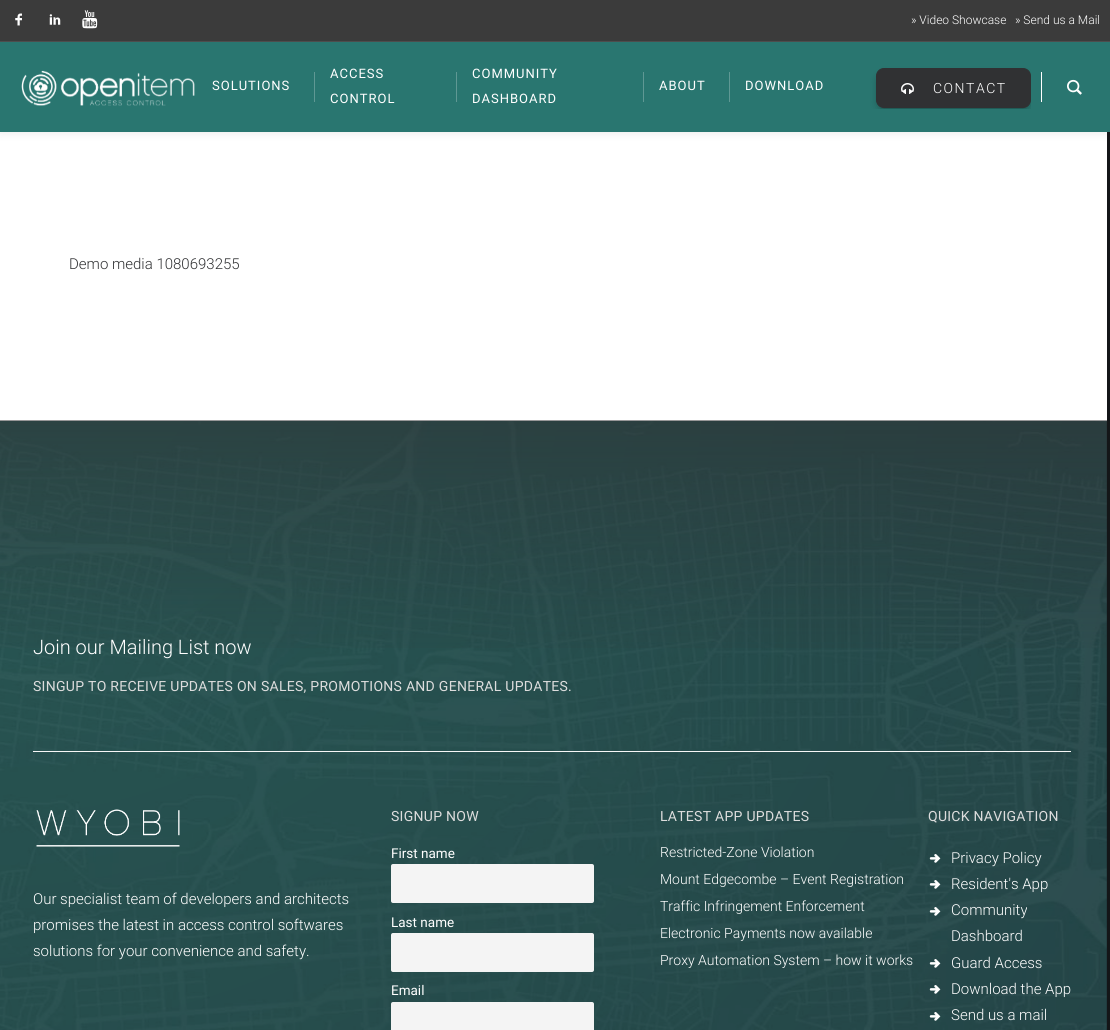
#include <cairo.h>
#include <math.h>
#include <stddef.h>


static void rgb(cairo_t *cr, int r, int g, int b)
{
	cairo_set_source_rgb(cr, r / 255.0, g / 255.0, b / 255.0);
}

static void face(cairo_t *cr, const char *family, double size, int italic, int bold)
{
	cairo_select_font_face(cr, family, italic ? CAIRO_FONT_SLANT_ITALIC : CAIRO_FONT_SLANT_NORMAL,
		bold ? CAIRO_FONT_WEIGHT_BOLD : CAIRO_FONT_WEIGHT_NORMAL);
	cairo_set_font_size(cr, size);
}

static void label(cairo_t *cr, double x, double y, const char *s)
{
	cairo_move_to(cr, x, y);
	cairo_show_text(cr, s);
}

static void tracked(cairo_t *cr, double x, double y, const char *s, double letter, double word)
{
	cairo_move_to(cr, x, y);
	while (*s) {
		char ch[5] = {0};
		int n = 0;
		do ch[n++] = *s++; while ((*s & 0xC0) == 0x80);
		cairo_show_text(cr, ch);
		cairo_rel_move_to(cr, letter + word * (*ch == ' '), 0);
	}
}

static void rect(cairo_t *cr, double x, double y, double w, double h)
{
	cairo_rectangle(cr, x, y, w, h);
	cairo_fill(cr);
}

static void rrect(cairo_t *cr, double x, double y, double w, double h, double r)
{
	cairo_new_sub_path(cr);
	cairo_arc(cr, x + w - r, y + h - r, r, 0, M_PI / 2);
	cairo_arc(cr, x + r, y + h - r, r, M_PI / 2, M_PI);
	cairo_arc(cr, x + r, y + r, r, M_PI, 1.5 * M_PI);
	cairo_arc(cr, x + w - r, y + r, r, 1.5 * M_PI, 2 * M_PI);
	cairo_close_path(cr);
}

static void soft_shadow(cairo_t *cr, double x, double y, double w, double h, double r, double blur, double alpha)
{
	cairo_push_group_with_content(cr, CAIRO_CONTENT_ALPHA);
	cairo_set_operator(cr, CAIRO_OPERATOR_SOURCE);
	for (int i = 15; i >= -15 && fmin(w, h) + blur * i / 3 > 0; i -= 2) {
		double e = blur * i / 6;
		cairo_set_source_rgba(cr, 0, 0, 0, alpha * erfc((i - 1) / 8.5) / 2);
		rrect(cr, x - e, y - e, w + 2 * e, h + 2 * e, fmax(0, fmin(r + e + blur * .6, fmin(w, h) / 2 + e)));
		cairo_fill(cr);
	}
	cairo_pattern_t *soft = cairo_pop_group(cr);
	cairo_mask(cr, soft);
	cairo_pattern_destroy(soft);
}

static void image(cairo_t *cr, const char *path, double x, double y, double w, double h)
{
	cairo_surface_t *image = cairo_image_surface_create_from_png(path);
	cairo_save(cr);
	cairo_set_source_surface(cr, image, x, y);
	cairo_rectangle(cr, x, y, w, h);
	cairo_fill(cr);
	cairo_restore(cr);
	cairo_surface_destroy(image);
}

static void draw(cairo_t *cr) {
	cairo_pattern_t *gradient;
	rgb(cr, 20, 22, 24);
	cairo_paint(cr);
	rgb(cr, 255, 255, 255);
	rect(cr, 0, 132, 1107, 289);
	rgb(cr, 0, 0, 0);
	soft_shadow(cr, 0, 42, 1110, 90, 0, 5, 0.1);
	rgb(cr, 77, 77, 77);
	rect(cr, 0, 41, 1110, 1);
	rgb(cr, 59, 59, 59);
	rect(cr, 0, 0, 1110, 41);
	image(cr, "image0.png", 15, 13, 7, 13);
	image(cr, "image1.png", 49, 14, 12, 11);
	image(cr, "image2.png", 82, 10, 16, 19);
	face(cr, "Roboto Light", 12, 0, 0);
	rgb(cr, 255, 255, 255);
	label(cr, 911, 24, "» Video Showcase");
	label(cr, 1015, 24, "» Send us a Mail");
	rgb(cr, 41, 118, 112);
	rect(cr, 0, 42, 1110, 90);
	image(cr, "image3.png", 21, 70, 174, 36);
	face(cr, "Roboto", 13, 0, 0);
	rgb(cr, 255, 255, 255);
	tracked(cr, 212, 90, "SOLUTIONS", 1, 0);
	rgb(cr, 95, 152, 148);
	rect(cr, 314, 72, 1, 30);
	rgb(cr, 255, 255, 255);
	tracked(cr, 330, 78, "ACCESS", 1, 0);
	tracked(cr, 330, 103, "CONTROL", 1, 0);
	rgb(cr, 95, 152, 148);
	rect(cr, 456, 72, 1, 30);
	rgb(cr, 255, 255, 255);
	tracked(cr, 472, 78, "COMMUNITY", 1, 0);
	tracked(cr, 472, 103, "DASHBOARD", 1, 0);
	rgb(cr, 95, 152, 148);
	rect(cr, 643, 72, 1, 30);
	rgb(cr, 255, 255, 255);
	tracked(cr, 659, 90, "ABOUT", 1, 0);
	rgb(cr, 95, 152, 148);
	rect(cr, 729, 72, 1, 30);
	rgb(cr, 255, 255, 255);
	tracked(cr, 745, 90, "DOWNLOAD", 1, 0);
	rect(cr, 1041, 72, 1, 30);
	cairo_save(cr);
	cairo_rectangle(cr, 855, 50, 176, 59);
	cairo_clip(cr);
	rgb(cr, 0, 0, 0);
	soft_shadow(cr, 881, 77, 145, 30, 3, 5, 0.6);
	cairo_restore(cr);
	rgb(cr, 48, 49, 51);
	rrect(cr, 876.5, 68.5, 154, 39, 7.5);
	cairo_fill_preserve(cr);
	cairo_set_line_width(cr, 1);
	cairo_stroke(cr);
	image(cr, "image4.png", 901, 83, 13, 11);
	face(cr, "Roboto Light", 14, 0, 0);
	rgb(cr, 255, 255, 255);
	tracked(cr, 933, 93, "CONTACT", 1.5, 0);
	image(cr, "image5.png", 1067, 79, 15, 16);
	face(cr, "Roboto Light", 15, 0, 0);
	rgb(cr, 48, 49, 51);
	label(cr, 69, 269, "Demo media 1080693255");
	image(cr, "image6.png", 0, 421, 1107, 609);
	gradient = cairo_pattern_create_radial(-3, 315, 0, -3, 315, 1661);
	cairo_pattern_add_color_stop_rgba(gradient, 0.09, 0.161, 0.463, 0.439, 0.3);
	cairo_pattern_add_color_stop_rgba(gradient, 0.94, 0.11, 0.204, 0.251, 0.3);
	cairo_set_source(cr, gradient);
	cairo_pattern_destroy(gradient);
	rect(cr, 0, 421, 1107, 609);
	gradient = cairo_pattern_create_linear(552, 680, 552, 420);
	cairo_pattern_add_color_stop_rgba(gradient, 0, 0.188, 0.192, 0.2, 0);
	cairo_pattern_add_color_stop_rgba(gradient, 1, 0.188, 0.192, 0.2, 0.5);
	cairo_set_source(cr, gradient);
	cairo_pattern_destroy(gradient);
	rect(cr, 0, 420, 1107, 228);
	face(cr, "Roboto Light", 20, 0, 0);
	rgb(cr, 255, 255, 255);
	label(cr, 33, 654, "Join our Mailing List now");
	face(cr, "Roboto", 14, 0, 0);
	rgb(cr, 221, 221, 221);
	tracked(cr, 33, 691, "SINGUP TO RECEIVE UPDATES ON SALES, PROMOTIONS AND GENERAL UPDATES.", 0.28, 0);
	rgb(cr, 247, 247, 247);
	rect(cr, 33, 751, 1038, 1);
	image(cr, "image7.png", 36, 809, 144, 38);
	face(cr, "Roboto Light", 15, 0, 0);
	rgb(cr, 255, 255, 255);
	label(cr, 33, 904, "Our specialist team of developers and architects");
	label(cr, 33, 930, "promises the latest in access control softwares");
	label(cr, 33, 956, "solutions for your convenience and safety.");
	face(cr, "Roboto", 14, 0, 0);
	rgb(cr, 221, 221, 221);
	tracked(cr, 391, 821, "SIGNUP NOW", 0.28, 0);
	face(cr, "Roboto", 13.5, 0, 0);
	rgb(cr, 255, 255, 255);
	label(cr, 391, 858, "First name");
	rgb(cr, 244, 244, 244);
	rrect(cr, 391, 864, 203, 39, 2);
	cairo_fill(cr);
	rgb(cr, 255, 255, 255);
	label(cr, 391, 927, "Last name");
	rgb(cr, 244, 244, 244);
	rrect(cr, 391, 933, 203, 39, 2);
	cairo_fill(cr);
	rgb(cr, 255, 255, 255);
	label(cr, 391, 995, "Email");
	rgb(cr, 244, 244, 244);
	rrect(cr, 391, 1002, 203, 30, 2);
	cairo_fill(cr);
	face(cr, "Roboto", 14, 0, 0);
	rgb(cr, 221, 221, 221);
	tracked(cr, 660, 821, "LATEST APP UPDATES", 0.28, 0);
	face(cr, "Roboto Light", 14, 0, 0);
	rgb(cr, 255, 255, 255);
	label(cr, 660, 857, "Restricted-Zone Violation");
	label(cr, 660, 884, "Mount Edgecombe – Event Registration");
	label(cr, 660, 911, "Traffic Infringement Enforcement");
	label(cr, 660, 938, "Electronic Payments now available");
	label(cr, 660, 965, "Proxy Automation System – how it works");
	face(cr, "Roboto", 14, 0, 0);
	rgb(cr, 221, 221, 221);
	tracked(cr, 928, 821, "QUICK NAVIGATION", 0.28, 0);
	image(cr, "image8.png", 929, 854, 12, 9);
	face(cr, "Roboto Light", 15, 0, 0);
	rgb(cr, 255, 255, 255);
	label(cr, 951, 863, "Privacy Policy");
	image(cr, "image9.png", 929, 880, 12, 9);
	label(cr, 951, 889, "Resident's App");
	image(cr, "image10.png", 929, 907, 12, 9);
	label(cr, 951, 915, "Community");
	label(cr, 951, 941, "Dashboard");
	image(cr, "image11.png", 929, 959, 12, 9);
	label(cr, 951, 968, "Guard Access");
	image(cr, "image12.png", 929, 985, 12, 9);
	label(cr, 951, 994, "Download the App");
	image(cr, "image13.png", 929, 1012, 12, 9);
	label(cr, 951, 1020, "Send us a mail");
}

int main(void) {
	cairo_surface_t *surface = cairo_image_surface_create(CAIRO_FORMAT_RGB24, 1110, 1030);
	cairo_t *cr = cairo_create(surface);
	cairo_font_options_t *options = cairo_font_options_create();
	cairo_font_options_set_hint_metrics(options, CAIRO_HINT_METRICS_OFF);
	cairo_font_options_set_hint_style(options, CAIRO_HINT_STYLE_NONE);
	cairo_set_font_options(cr, options);
	cairo_set_miter_limit(cr, 4);
	draw(cr);
	cairo_surface_write_to_png(surface, "render.png");
	cairo_font_options_destroy(options);
	cairo_destroy(cr);
	cairo_surface_destroy(surface);
	return 0;
}
